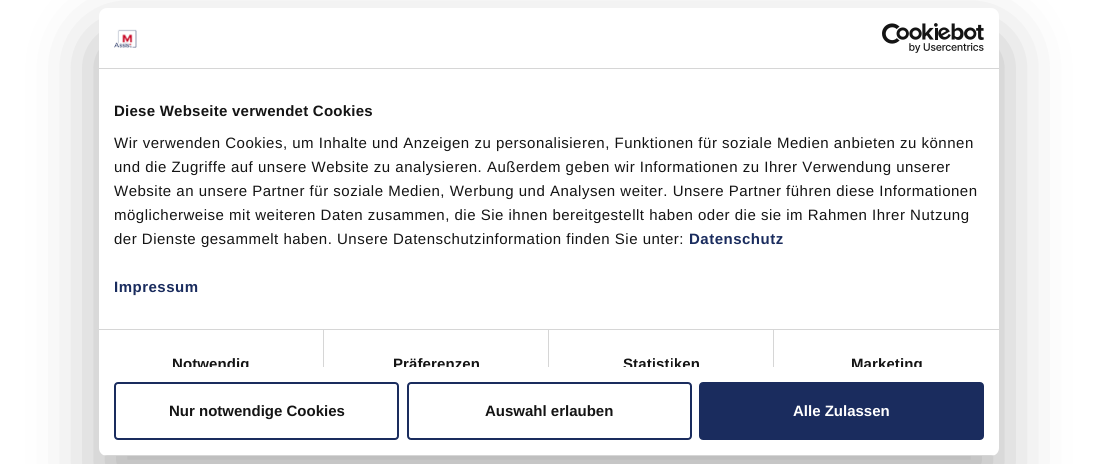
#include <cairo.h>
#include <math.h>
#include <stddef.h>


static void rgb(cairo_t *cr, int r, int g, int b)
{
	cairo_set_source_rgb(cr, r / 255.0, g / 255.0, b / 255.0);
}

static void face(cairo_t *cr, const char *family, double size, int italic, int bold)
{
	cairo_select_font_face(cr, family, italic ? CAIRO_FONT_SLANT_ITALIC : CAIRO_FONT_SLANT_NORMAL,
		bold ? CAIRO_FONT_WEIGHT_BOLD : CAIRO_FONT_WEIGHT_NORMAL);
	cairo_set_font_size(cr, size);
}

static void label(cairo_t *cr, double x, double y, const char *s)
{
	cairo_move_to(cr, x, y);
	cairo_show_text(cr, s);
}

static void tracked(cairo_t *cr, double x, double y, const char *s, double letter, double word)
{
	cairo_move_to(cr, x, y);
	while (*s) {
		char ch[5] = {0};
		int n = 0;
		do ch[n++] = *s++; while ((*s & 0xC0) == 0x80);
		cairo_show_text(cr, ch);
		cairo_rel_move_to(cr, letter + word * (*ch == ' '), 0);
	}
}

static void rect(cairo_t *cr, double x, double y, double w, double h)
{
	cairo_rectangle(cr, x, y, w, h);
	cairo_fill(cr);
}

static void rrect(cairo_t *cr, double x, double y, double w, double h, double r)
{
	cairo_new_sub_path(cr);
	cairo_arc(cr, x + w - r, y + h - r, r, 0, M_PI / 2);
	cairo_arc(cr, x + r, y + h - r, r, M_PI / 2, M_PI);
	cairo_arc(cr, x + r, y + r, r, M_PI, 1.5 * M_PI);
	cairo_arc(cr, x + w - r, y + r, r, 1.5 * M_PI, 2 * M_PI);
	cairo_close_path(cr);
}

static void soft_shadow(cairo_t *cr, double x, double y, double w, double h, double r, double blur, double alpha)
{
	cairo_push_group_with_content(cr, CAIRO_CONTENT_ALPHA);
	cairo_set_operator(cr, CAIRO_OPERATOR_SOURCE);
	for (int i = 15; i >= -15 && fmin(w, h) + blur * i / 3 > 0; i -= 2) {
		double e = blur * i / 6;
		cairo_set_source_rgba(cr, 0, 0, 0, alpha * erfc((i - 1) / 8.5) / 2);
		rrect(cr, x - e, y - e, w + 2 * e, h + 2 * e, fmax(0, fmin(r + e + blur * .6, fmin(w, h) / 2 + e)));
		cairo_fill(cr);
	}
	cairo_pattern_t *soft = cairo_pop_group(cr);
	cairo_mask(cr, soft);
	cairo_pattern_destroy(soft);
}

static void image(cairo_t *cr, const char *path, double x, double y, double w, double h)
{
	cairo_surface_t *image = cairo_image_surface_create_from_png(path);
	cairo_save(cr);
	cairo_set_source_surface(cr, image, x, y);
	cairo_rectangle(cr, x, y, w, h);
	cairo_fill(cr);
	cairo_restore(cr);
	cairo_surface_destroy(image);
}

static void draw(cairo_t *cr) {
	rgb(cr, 255, 255, 255);
	cairo_paint(cr);
	rgb(cr, 0, 0, 0);
	soft_shadow(cr, 99, 40, 900, 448, 8, 34, 0.3);
	rgb(cr, 255, 255, 255);
	rrect(cr, 99, 8, 900, 448, 8);
	cairo_fill(cr);
	rgb(cr, 214, 214, 214);
	rect(cr, 99, 68, 900, 1);
	image(cr, "image0.png", 114, 29, 23, 19);
	image(cr, "image1.png", 882, 23, 102, 30);
	rect(cr, 99, 329, 900, 1);
	face(cr, "Liberation Sans", 15, 0, 1);
	rgb(cr, 20, 20, 20);
	tracked(cr, 114, 116, "Diese Webseite verwendet Cookies", 0.25, 0);
	face(cr, "Liberation Sans", 15, 0, 0);
	tracked(cr, 114, 148, "Wir verwenden Cookies, um Inhalte und Anzeigen zu personalisieren, Funktionen für soziale Medien anbieten zu können", 0.5, 0);
	tracked(cr, 114, 172, "und die Zugriffe auf unsere Website zu analysieren. Außerdem geben wir Informationen zu Ihrer Verwendung unserer", 0.5, 0);
	tracked(cr, 114, 196, "Website an unsere Partner für soziale Medien, Werbung und Analysen weiter. Unsere Partner führen diese Informationen", 0.5, 0);
	tracked(cr, 114, 220, "möglicherweise mit weiteren Daten zusammen, die Sie ihnen bereitgestellt haben oder die sie im Rahmen Ihrer Nutzung", 0.5, 0);
	tracked(cr, 114, 244, "der Dienste gesammelt haben. Unsere Datenschutzinformation finden Sie unter:", 0.5, 0);
	face(cr, "Liberation Sans", 15, 0, 1);
	rgb(cr, 26, 44, 94);
	tracked(cr, 689, 244, "Datenschutz", 0.5, 0);
	tracked(cr, 114, 292, "Impressum", 0.5, 0);
	rgb(cr, 214, 214, 214);
	rect(cr, 323, 330, 1, 37);
	cairo_save(cr);
	cairo_rectangle(cr, 99, 69, 900, 298);
	cairo_clip(cr);
	rgb(cr, 20, 20, 20);
	tracked(cr, 172, 369, "Notwendig", 0.1, 0);
	cairo_restore(cr);
	rect(cr, 548, 330, 1, 37);
	cairo_save(cr);
	cairo_rectangle(cr, 99, 69, 900, 298);
	cairo_clip(cr);
	rgb(cr, 20, 20, 20);
	tracked(cr, 393, 369, "Präferenzen", 0.1, 0);
	cairo_restore(cr);
	rect(cr, 773, 330, 1, 37);
	cairo_save(cr);
	cairo_rectangle(cr, 99, 69, 900, 298);
	cairo_clip(cr);
	rgb(cr, 20, 20, 20);
	tracked(cr, 623, 369, "Statistiken", 0.1, 0);
	tracked(cr, 851, 369, "Marketing", 0.1, 0);
	cairo_restore(cr);
	cairo_save(cr);
	rrect(cr, 99, 8, 900, 448, 8);
	cairo_clip(cr);
	rect(cr, 99, 455, 900, 1);
	cairo_restore(cr);
	rrect(cr, 115, 383, 283, 56, 3);
	rgb(cr, 26, 44, 94);
	cairo_stroke(cr);
	rgb(cr, 20, 20, 20);
	label(cr, 169, 416, "Nur notwendige Cookies");
	rrect(cr, 408, 383, 283, 56, 3);
	rgb(cr, 26, 44, 94);
	cairo_stroke(cr);
	rgb(cr, 20, 20, 20);
	label(cr, 485, 416, "Auswahl erlauben");
	rgb(cr, 26, 44, 94);
	rrect(cr, 700, 383, 283, 56, 3);
	cairo_fill_preserve(cr);
	cairo_stroke(cr);
	rgb(cr, 255, 255, 255);
	label(cr, 793, 416, "Alle Zulassen");
}

int main(void) {
	cairo_surface_t *surface = cairo_image_surface_create(CAIRO_FORMAT_RGB24, 1098, 464);
	cairo_t *cr = cairo_create(surface);
	cairo_font_options_t *options = cairo_font_options_create();
	cairo_font_options_set_hint_metrics(options, CAIRO_HINT_METRICS_OFF);
	cairo_font_options_set_hint_style(options, CAIRO_HINT_STYLE_NONE);
	cairo_set_font_options(cr, options);
	cairo_set_miter_limit(cr, 4);
	draw(cr);
	cairo_surface_write_to_png(surface, "render.png");
	cairo_font_options_destroy(options);
	cairo_destroy(cr);
	cairo_surface_destroy(surface);
	return 0;
}
